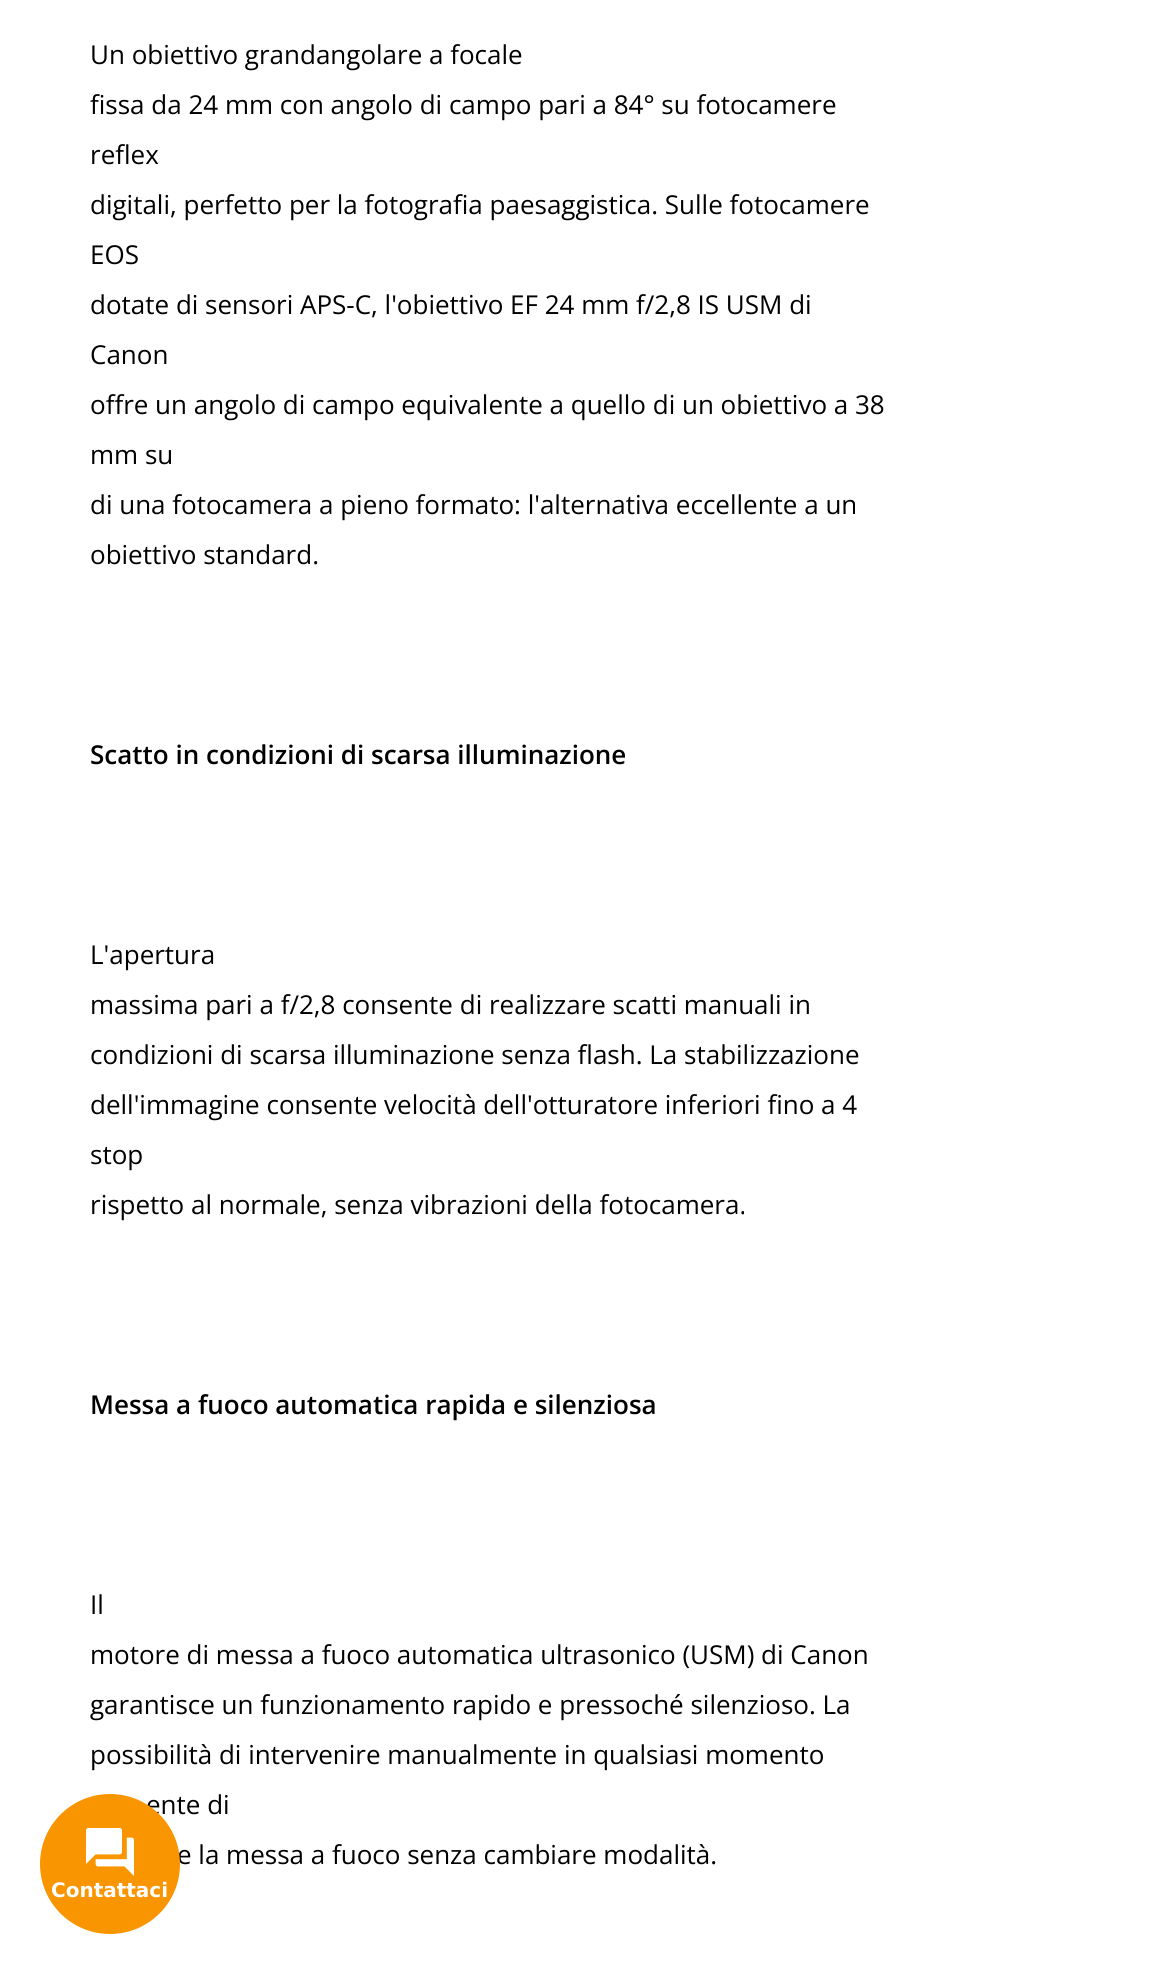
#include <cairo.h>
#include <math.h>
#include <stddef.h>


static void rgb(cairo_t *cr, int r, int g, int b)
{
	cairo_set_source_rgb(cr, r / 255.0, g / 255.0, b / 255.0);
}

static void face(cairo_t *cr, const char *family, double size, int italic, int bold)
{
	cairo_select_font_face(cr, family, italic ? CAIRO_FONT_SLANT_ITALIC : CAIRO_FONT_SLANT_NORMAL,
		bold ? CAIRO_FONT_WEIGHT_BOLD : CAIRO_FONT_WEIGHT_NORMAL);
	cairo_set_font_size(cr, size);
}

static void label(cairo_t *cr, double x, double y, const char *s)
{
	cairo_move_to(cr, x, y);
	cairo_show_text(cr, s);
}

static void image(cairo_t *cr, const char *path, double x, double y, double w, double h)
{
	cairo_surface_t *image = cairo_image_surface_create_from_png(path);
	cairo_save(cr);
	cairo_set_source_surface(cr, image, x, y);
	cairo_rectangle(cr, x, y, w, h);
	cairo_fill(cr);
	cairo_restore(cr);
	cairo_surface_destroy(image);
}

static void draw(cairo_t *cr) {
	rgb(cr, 255, 255, 255);
	cairo_paint(cr);
	face(cr, "Open Sans", 26, 0, 0);
	rgb(cr, 0, 0, 0);
	label(cr, 90, 64, "Un obiettivo grandangolare a focale");
	label(cr, 90, 114, "fissa da 24 mm con angolo di campo pari a 84° su fotocamere");
	label(cr, 90, 164, "reflex");
	label(cr, 90, 214, "digitali, perfetto per la fotografia paesaggistica. Sulle fotocamere");
	label(cr, 90, 264, "EOS");
	label(cr, 90, 314, "dotate di sensori APS-C, l'obiettivo EF 24 mm f/2,8 IS USM di");
	label(cr, 90, 364, "Canon");
	label(cr, 90, 414, "offre un angolo di campo equivalente a quello di un obiettivo a 38");
	label(cr, 90, 464, "mm su");
	label(cr, 90, 514, "di una fotocamera a pieno formato: l'alternativa eccellente a un");
	label(cr, 90, 564, "obiettivo standard.");
	face(cr, "Open Sans SemiBold", 26, 0, 0);
	label(cr, 90, 764, "Scatto in condizioni di scarsa illuminazione");
	face(cr, "Open Sans", 26, 0, 0);
	label(cr, 90, 964, "L'apertura");
	label(cr, 90, 1014, "massima pari a f/2,8 consente di realizzare scatti manuali in");
	label(cr, 90, 1064, "condizioni di scarsa illuminazione senza flash. La stabilizzazione");
	label(cr, 90, 1114, "dell'immagine consente velocità dell'otturatore inferiori fino a 4");
	label(cr, 90, 1164, "stop");
	label(cr, 90, 1214, "rispetto al normale, senza vibrazioni della fotocamera.");
	face(cr, "Open Sans SemiBold", 26, 0, 0);
	label(cr, 90, 1414, "Messa a fuoco automatica rapida e silenziosa");
	face(cr, "Open Sans", 26, 0, 0);
	label(cr, 90, 1614, "Il");
	label(cr, 90, 1664, "motore di messa a fuoco automatica ultrasonico (USM) di Canon");
	label(cr, 90, 1714, "garantisce un funzionamento rapido e pressoché silenzioso. La");
	label(cr, 90, 1764, "possibilità di intervenire manualmente in qualsiasi momento");
	label(cr, 146, 1814, "ente di");
	label(cr, 177, 1864, "e la messa a fuoco senza cambiare modalità.");
	rgb(cr, 249, 149, 0);
	cairo_new_path(cr);
	cairo_arc(cr, 110, 1864, 70, 0, 2 * M_PI);
	cairo_fill(cr);
	image(cr, "image0.png", 86, 1828, 48, 48);
	face(cr, "DejaVu Sans", 20, 0, 1);
	rgb(cr, 255, 255, 255);
	label(cr, 51, 1897, "Contattaci");
}

int main(void) {
	cairo_surface_t *surface = cairo_image_surface_create(CAIRO_FORMAT_RGB24, 1168, 1974);
	cairo_t *cr = cairo_create(surface);
	cairo_font_options_t *options = cairo_font_options_create();
	cairo_font_options_set_hint_metrics(options, CAIRO_HINT_METRICS_OFF);
	cairo_font_options_set_hint_style(options, CAIRO_HINT_STYLE_NONE);
	cairo_set_font_options(cr, options);
	cairo_set_miter_limit(cr, 4);
	draw(cr);
	cairo_surface_write_to_png(surface, "render.png");
	cairo_font_options_destroy(options);
	cairo_destroy(cr);
	cairo_surface_destroy(surface);
	return 0;
}
